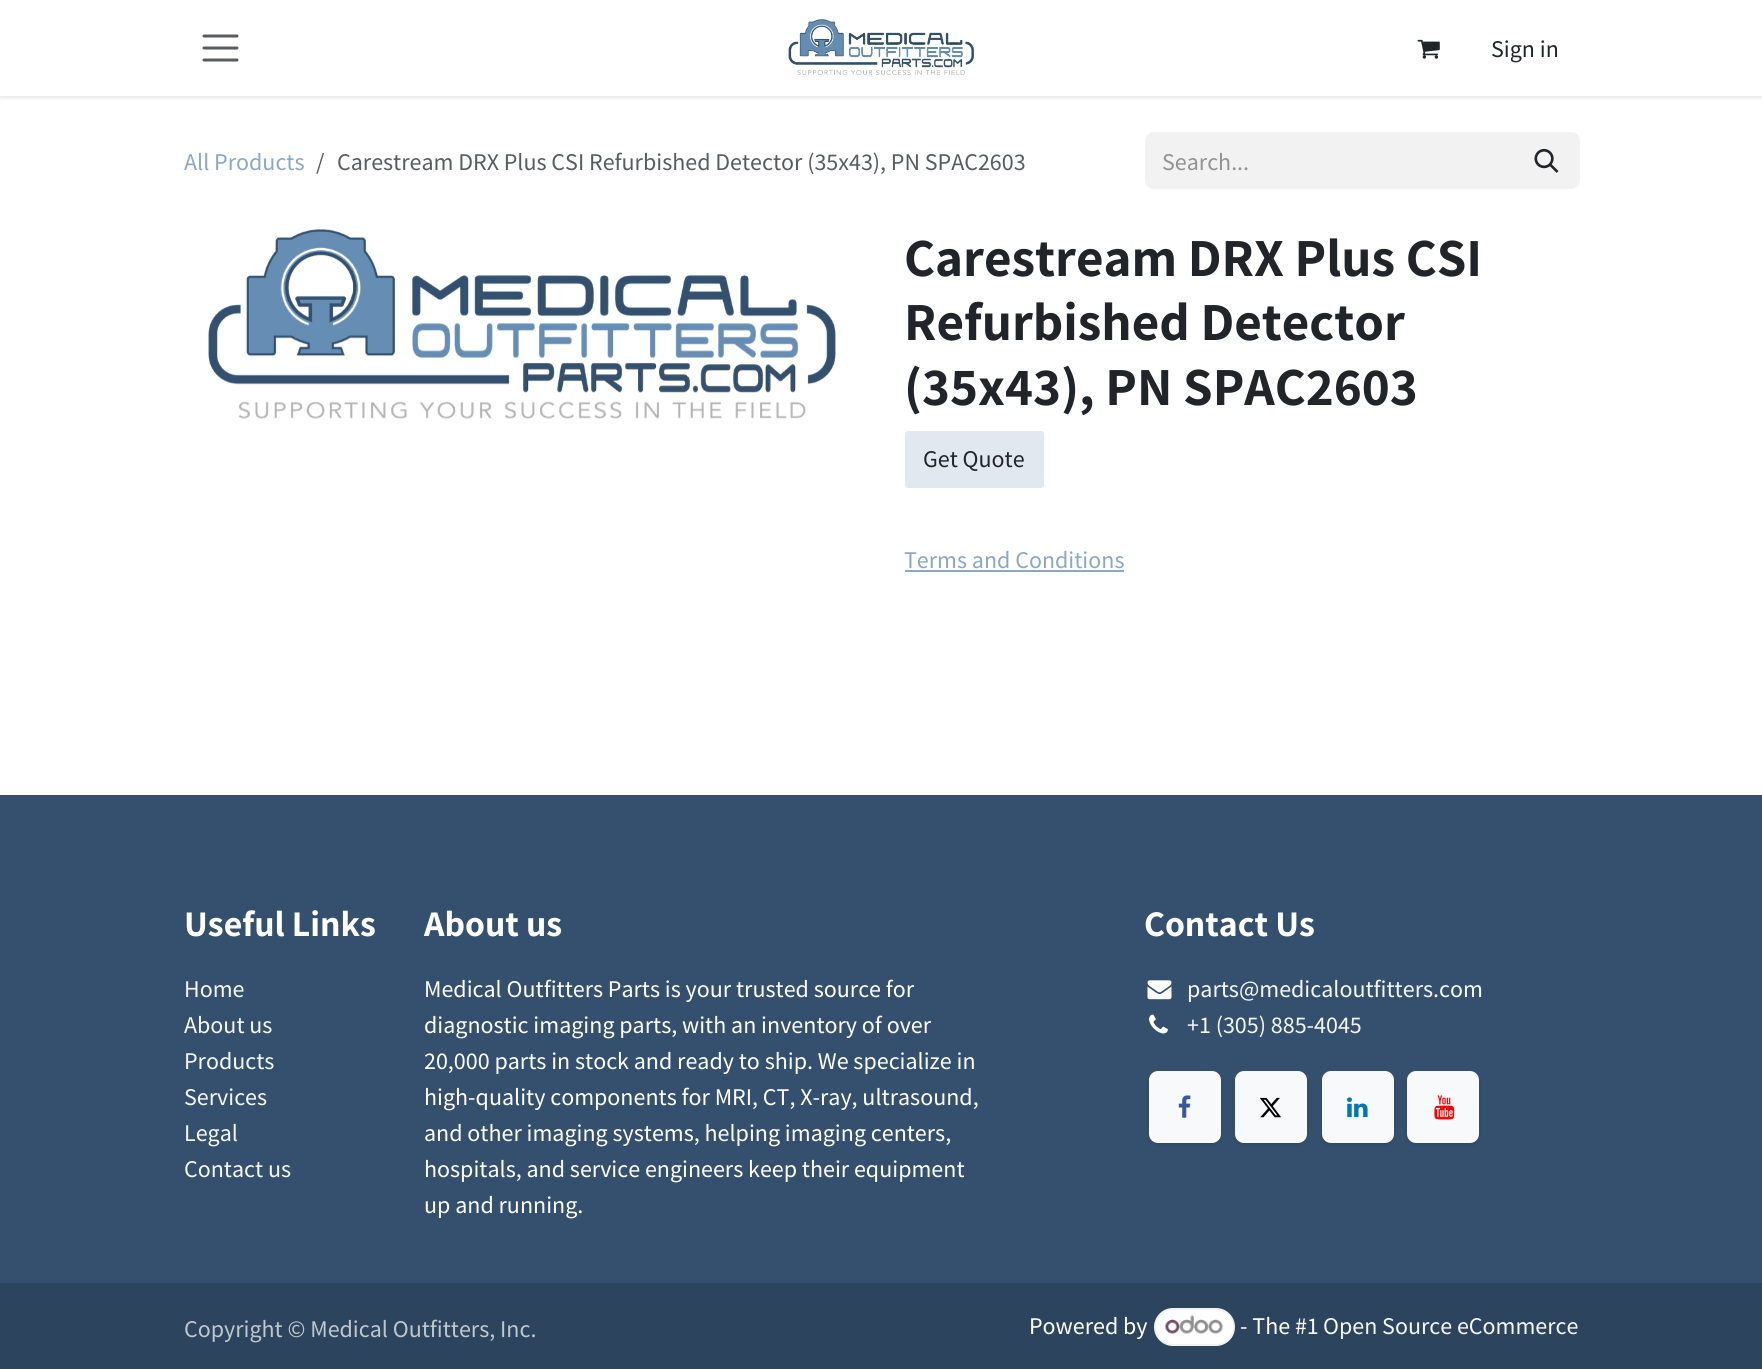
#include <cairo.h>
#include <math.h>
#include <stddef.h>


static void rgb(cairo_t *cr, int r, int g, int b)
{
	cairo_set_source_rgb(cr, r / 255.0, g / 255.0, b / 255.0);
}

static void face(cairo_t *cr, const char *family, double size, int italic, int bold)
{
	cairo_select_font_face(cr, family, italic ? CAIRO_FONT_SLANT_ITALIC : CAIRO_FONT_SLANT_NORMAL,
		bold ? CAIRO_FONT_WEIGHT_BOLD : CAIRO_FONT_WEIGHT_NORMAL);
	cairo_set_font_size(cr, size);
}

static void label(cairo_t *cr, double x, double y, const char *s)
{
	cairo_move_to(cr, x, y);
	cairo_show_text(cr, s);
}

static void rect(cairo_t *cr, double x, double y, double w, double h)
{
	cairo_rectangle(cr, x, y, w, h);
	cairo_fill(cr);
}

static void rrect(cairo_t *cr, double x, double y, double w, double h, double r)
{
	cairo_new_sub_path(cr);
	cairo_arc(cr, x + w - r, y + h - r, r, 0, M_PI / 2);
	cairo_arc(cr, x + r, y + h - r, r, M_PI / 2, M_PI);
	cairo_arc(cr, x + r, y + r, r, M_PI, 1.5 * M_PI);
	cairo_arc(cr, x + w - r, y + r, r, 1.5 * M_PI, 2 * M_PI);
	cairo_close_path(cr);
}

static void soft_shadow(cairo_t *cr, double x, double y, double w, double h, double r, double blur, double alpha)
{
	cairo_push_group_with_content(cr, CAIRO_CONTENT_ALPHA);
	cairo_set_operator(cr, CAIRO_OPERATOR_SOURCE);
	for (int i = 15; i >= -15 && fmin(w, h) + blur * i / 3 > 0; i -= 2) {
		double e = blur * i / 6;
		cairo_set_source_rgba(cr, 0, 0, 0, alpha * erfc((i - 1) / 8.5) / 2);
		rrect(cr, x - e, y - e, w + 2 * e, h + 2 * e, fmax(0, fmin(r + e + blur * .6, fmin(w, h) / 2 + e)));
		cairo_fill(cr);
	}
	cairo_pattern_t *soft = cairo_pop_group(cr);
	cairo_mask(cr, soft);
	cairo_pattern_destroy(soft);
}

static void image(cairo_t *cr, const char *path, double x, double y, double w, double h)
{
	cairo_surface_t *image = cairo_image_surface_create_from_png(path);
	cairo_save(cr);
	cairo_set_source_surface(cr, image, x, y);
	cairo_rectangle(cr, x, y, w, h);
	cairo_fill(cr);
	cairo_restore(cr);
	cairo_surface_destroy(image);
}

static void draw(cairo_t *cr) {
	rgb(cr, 255, 255, 255);
	cairo_paint(cr);
	cairo_save(cr);
	cairo_rectangle(cr, 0, 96, 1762, 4);
	cairo_clip(cr);
	rgb(cr, 0, 0, 0);
	soft_shadow(cr, 0, 2, 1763, 96, 0, 2, 0.1);
	cairo_restore(cr);
	cairo_new_path(cr);
	cairo_move_to(cr, 204, 36);
	cairo_line_to(cr, 237, 36);
	cairo_move_to(cr, 204, 48);
	cairo_line_to(cr, 237, 48);
	cairo_move_to(cr, 204, 60);
	cairo_line_to(cr, 237, 60);
	rgb(cr, 89, 92, 95);
	cairo_set_line_width(cr, 3);
	cairo_set_line_cap(cr, CAIRO_LINE_CAP_ROUND);
	cairo_stroke(cr);
	image(cr, "image0.png", 788, 19, 187, 56);
	image(cr, "image1.png", 1417, 39, 23, 20);
	face(cr, "Source Sans Pro", 24, 0, 0);
	rgb(cr, 33, 37, 41);
	label(cr, 1491, 57, "Sign in");
	rgb(cr, 140, 167, 198);
	label(cr, 184, 170, "All Products");
	rgb(cr, 89, 92, 95);
	label(cr, 316, 170, "/");
	label(cr, 337, 170, "Carestream DRX Plus CSI Refurbished Detector (35x43), PN SPAC2603");
	rgb(cr, 243, 242, 242);
	cairo_new_path(cr);
	cairo_move_to(cr, 1154, 132);
	cairo_line_to(cr, 1517, 132);
	cairo_line_to(cr, 1517, 189);
	cairo_line_to(cr, 1154, 189);
	cairo_curve_to(cr, 1149, 189, 1145, 185, 1145, 180);
	cairo_line_to(cr, 1145, 141);
	cairo_curve_to(cr, 1145, 136, 1149, 132, 1154, 132);
	cairo_close_path(cr);
	cairo_fill(cr);
	rgb(cr, 144, 146, 148);
	label(cr, 1162, 170, "Search...");
	rgb(cr, 243, 242, 242);
	cairo_new_path(cr);
	cairo_move_to(cr, 1516, 133);
	cairo_line_to(cr, 1571, 133);
	cairo_curve_to(cr, 1575.5, 133, 1579, 136.5, 1579, 141);
	cairo_line_to(cr, 1579, 180);
	cairo_curve_to(cr, 1579, 184.5, 1575.5, 188, 1571, 188);
	cairo_line_to(cr, 1516, 188);
	cairo_close_path(cr);
	cairo_fill_preserve(cr);
	cairo_set_line_width(cr, 2);
	cairo_set_line_cap(cr, CAIRO_LINE_CAP_BUTT);
	cairo_stroke(cr);
	image(cr, "image2.png", 1534, 148, 25, 25);
	image(cr, "image3.png", 208, 229, 628, 190);
	face(cr, "Assistant", 53.5, 0, 1);
	rgb(cr, 33, 37, 41);
	label(cr, 904, 276, "Carestream DRX Plus CSI");
	label(cr, 904, 340, "Refurbished Detector");
	label(cr, 904, 405, "(35x43), PN SPAC2603");
	rgb(cr, 225, 232, 240);
	rrect(cr, 906, 432, 137, 55, 2);
	cairo_fill_preserve(cr);
	cairo_stroke(cr);
	face(cr, "Source Sans Pro", 24, 0, 0);
	rgb(cr, 33, 37, 41);
	label(cr, 923, 467, "Get Quote");
	rgb(cr, 140, 167, 198);
	label(cr, 904, 568, "Terms and Conditions");
	rect(cr, 905, 570, 219, 2);
	rgb(cr, 52, 80, 110);
	rect(cr, 0, 795, 1762, 488);
	face(cr, "Assistant", 36, 0, 1);
	rgb(cr, 255, 255, 255);
	label(cr, 184, 936, "Useful Links");
	face(cr, "Source Sans Pro", 24, 0, 0);
	rgb(cr, 245, 248, 250);
	label(cr, 184, 997, "Home");
	label(cr, 184, 1033, "About us");
	label(cr, 184, 1069, "Products");
	label(cr, 184, 1105, "Services");
	label(cr, 184, 1141, "Legal");
	label(cr, 184, 1177, "Contact us");
	face(cr, "Assistant", 36, 0, 1);
	rgb(cr, 255, 255, 255);
	label(cr, 424, 936, "About us");
	face(cr, "Source Sans Pro", 24, 0, 0);
	label(cr, 424, 997, "Medical Outfitters Parts is your trusted source for");
	label(cr, 424, 1033, "diagnostic imaging parts, with an inventory of over");
	label(cr, 424, 1069, "20,000 parts in stock and ready to ship. We specialize in");
	label(cr, 424, 1105, "high-quality components for MRI, CT, X-ray, ultrasound,");
	label(cr, 424, 1141, "and other imaging systems, helping imaging centers,");
	label(cr, 424, 1177, "hospitals, and service engineers keep their equipment");
	label(cr, 424, 1213, "up and running.");
	face(cr, "Assistant", 36, 0, 1);
	label(cr, 1144, 936, "Contact Us");
	image(cr, "image4.png", 1147, 980, 25, 20);
	face(cr, "Source Sans Pro", 24, 0, 0);
	rgb(cr, 245, 248, 250);
	label(cr, 1187, 997, "parts@medicaloutfitters.com");
	image(cr, "image5.png", 1149, 1014, 19, 20);
	label(cr, 1187, 1033, "+1 (305) 885-4045");
	rgb(cr, 0, 0, 0);
	soft_shadow(cr, 1149, 1073, 72, 72, 9, 2, 0.1);
	rgb(cr, 248, 249, 250);
	rrect(cr, 1149, 1071, 72, 72, 9);
	cairo_fill(cr);
	image(cr, "image6.png", 1178, 1095, 13, 23);
	rgb(cr, 0, 0, 0);
	soft_shadow(cr, 1235, 1073, 72, 72, 9, 2, 0.1);
	rgb(cr, 248, 249, 250);
	rrect(cr, 1235, 1071, 72, 72, 9);
	cairo_fill(cr);
	image(cr, "image7.png", 1260, 1097, 21, 21);
	rgb(cr, 0, 0, 0);
	soft_shadow(cr, 1322, 1073, 72, 72, 9, 2, 0.1);
	rgb(cr, 248, 249, 250);
	rrect(cr, 1322, 1071, 72, 72, 9);
	cairo_fill(cr);
	image(cr, "image8.png", 1347, 1097, 21, 21);
	rgb(cr, 0, 0, 0);
	soft_shadow(cr, 1407, 1073, 72, 72, 9, 2, 0.1);
	rgb(cr, 248, 249, 250);
	rrect(cr, 1407, 1071, 72, 72, 9);
	cairo_fill(cr);
	image(cr, "image9.png", 1434, 1095, 21, 25);
	rgb(cr, 44, 68, 94);
	rect(cr, 0, 1283, 1762, 86);
	rgb(cr, 192, 199, 207);
	label(cr, 184, 1337, "Copyright © Medical Outfitters, Inc.");
	rgb(cr, 255, 255, 255);
	label(cr, 1029, 1334, "Powered by");
	rgb(cr, 254, 254, 254);
	rrect(cr, 1155, 1309, 79, 36, 18);
	cairo_fill_preserve(cr);
	rgb(cr, 243, 242, 242);
	cairo_stroke(cr);
	image(cr, "image10.png", 1165, 1315, 58, 19);
	rgb(cr, 255, 255, 255);
	label(cr, 1240, 1334, "- The #1");
	rgb(cr, 245, 248, 250);
	label(cr, 1323, 1334, "Open Source eCommerce");
}

int main(void) {
	cairo_surface_t *surface = cairo_image_surface_create(CAIRO_FORMAT_RGB24, 1762, 1369);
	cairo_t *cr = cairo_create(surface);
	cairo_font_options_t *options = cairo_font_options_create();
	cairo_font_options_set_hint_metrics(options, CAIRO_HINT_METRICS_OFF);
	cairo_font_options_set_hint_style(options, CAIRO_HINT_STYLE_NONE);
	cairo_set_font_options(cr, options);
	cairo_set_miter_limit(cr, 4);
	draw(cr);
	cairo_surface_write_to_png(surface, "render.png");
	cairo_font_options_destroy(options);
	cairo_destroy(cr);
	cairo_surface_destroy(surface);
	return 0;
}
